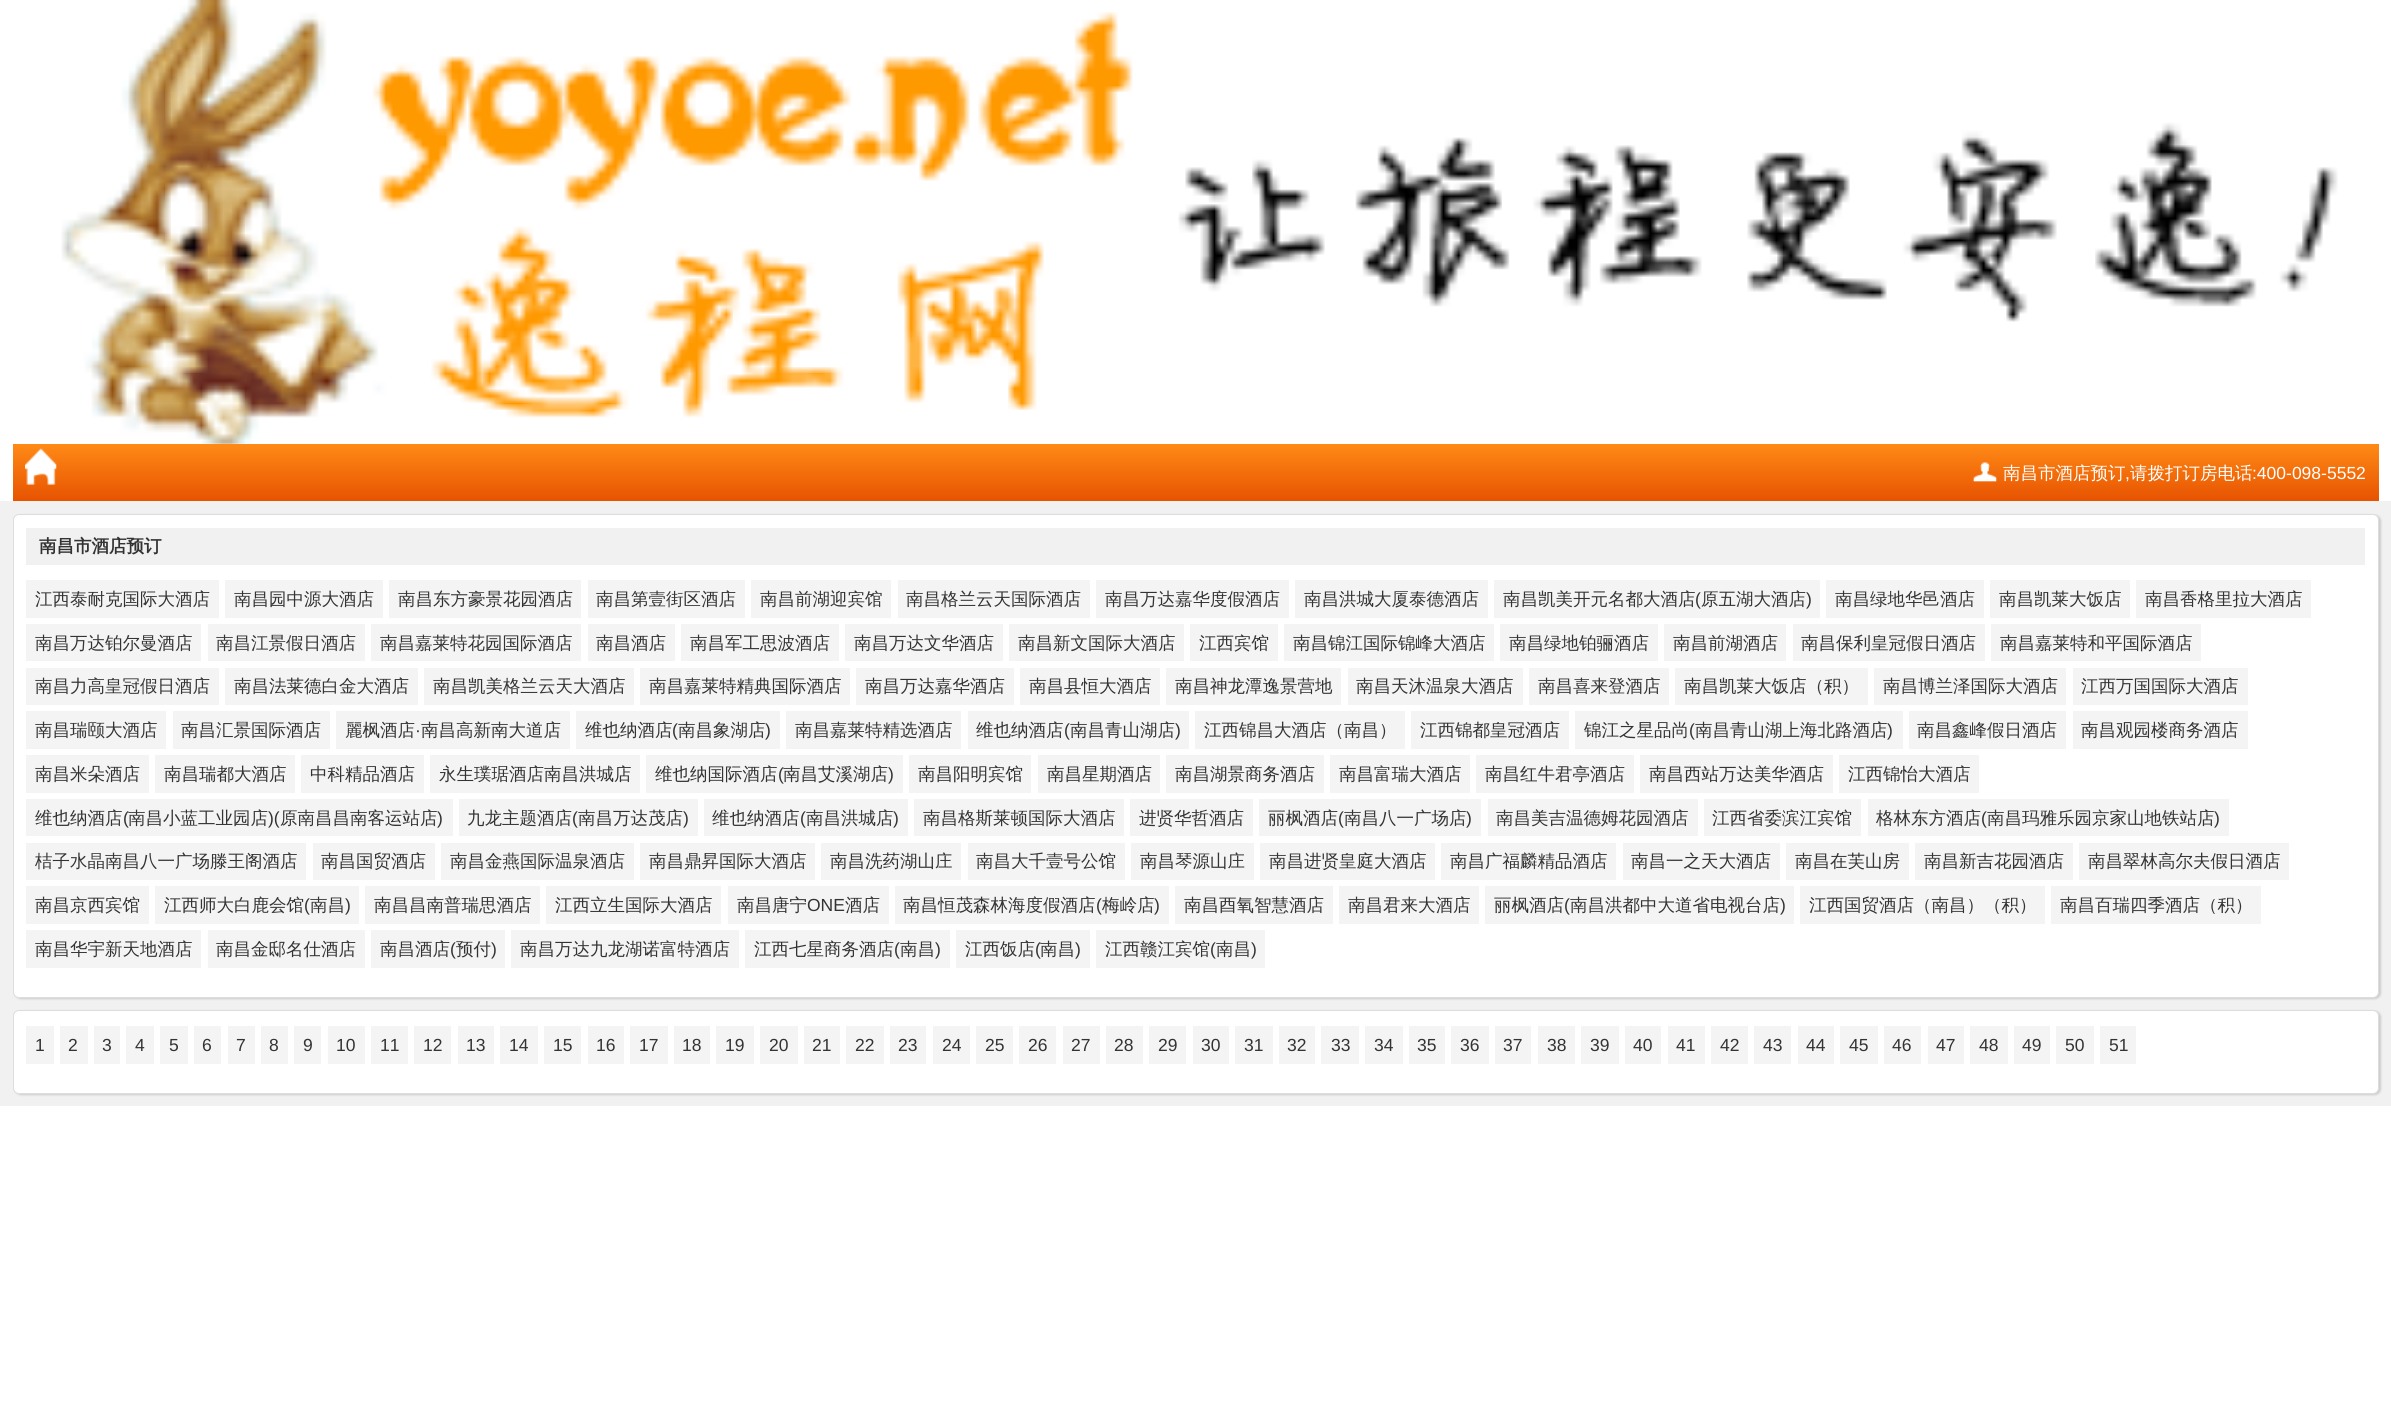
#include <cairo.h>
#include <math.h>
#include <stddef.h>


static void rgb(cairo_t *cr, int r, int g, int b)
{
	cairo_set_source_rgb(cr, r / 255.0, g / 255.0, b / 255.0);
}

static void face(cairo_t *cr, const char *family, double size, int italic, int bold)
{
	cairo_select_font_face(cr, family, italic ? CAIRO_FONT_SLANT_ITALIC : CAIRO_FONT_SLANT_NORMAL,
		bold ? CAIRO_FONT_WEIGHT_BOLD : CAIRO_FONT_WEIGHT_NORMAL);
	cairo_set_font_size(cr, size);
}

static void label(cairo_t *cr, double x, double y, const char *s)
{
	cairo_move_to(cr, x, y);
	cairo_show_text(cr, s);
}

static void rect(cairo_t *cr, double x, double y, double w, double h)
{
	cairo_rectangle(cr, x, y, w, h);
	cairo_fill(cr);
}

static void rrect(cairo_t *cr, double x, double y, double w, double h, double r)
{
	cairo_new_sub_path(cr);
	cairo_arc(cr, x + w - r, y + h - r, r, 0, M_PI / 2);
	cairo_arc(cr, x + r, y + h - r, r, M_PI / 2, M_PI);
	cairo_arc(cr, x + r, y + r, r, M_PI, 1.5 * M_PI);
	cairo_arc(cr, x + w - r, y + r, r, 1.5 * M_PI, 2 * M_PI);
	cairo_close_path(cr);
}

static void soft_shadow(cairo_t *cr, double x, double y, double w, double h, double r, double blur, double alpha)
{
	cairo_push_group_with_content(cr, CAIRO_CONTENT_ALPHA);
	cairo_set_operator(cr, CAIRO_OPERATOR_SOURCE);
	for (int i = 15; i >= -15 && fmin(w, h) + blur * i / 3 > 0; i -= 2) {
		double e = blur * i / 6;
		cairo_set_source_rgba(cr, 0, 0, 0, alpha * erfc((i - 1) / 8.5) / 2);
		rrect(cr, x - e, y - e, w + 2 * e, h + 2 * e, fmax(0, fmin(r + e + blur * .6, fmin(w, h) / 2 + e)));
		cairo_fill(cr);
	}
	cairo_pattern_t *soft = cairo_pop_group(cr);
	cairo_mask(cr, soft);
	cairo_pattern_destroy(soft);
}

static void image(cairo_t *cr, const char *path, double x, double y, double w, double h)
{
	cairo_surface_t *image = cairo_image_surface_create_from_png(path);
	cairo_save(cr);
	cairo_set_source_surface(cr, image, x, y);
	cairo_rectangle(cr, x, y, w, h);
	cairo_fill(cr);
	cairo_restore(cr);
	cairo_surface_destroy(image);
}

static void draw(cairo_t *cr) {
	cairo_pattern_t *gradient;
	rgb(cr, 255, 255, 255);
	cairo_paint(cr);
	image(cr, "image0.png", 61, 0, 2277, 444);
	gradient = cairo_pattern_create_linear(13, 444, 13, 501);
	cairo_pattern_add_color_stop_rgba(gradient, 0, 1, 0.541, 0.086, 1);
	cairo_pattern_add_color_stop_rgba(gradient, 1, 0.906, 0.325, 0.004, 1);
	cairo_set_source(cr, gradient);
	cairo_pattern_destroy(gradient);
	rect(cr, 13, 444, 2366, 57);
	image(cr, "image1.png", 25, 448, 32, 37);
	image(cr, "image2.png", 1972, 462, 25, 20);
	face(cr, "WenQuanYi Zen Hei Medium", 17.5, 0, 0);
	rgb(cr, 255, 255, 255);
	label(cr, 2003, 479, "南昌市酒店预订");
	face(cr, "Liberation Sans", 17.5, 0, 0);
	label(cr, 2125, 479, ",");
	face(cr, "WenQuanYi Zen Hei Medium", 17.5, 0, 0);
	label(cr, 2130, 479, "请拨打订房电话");
	face(cr, "Liberation Sans", 17.5, 0, 0);
	label(cr, 2252, 479, ":400-098-5552");
	rgb(cr, 241, 241, 241);
	rect(cr, 0, 501, 2391, 605);
	rgb(cr, 204, 204, 204);
	soft_shadow(cr, 15, 515, 2366, 484, 6, 1, 1);
	rgb(cr, 255, 255, 255);
	rrect(cr, 13.5, 514.5, 2365, 483, 5.5);
	cairo_fill_preserve(cr);
	rgb(cr, 221, 221, 221);
	cairo_set_line_width(cr, 1);
	cairo_stroke(cr);
	rgb(cr, 241, 241, 241);
	rect(cr, 26, 528, 2339, 37);
	face(cr, "WenQuanYi Zen Hei", 17.5, 0, 1);
	rgb(cr, 51, 51, 51);
	label(cr, 39, 552, "南昌市酒店预订");
	rgb(cr, 244, 244, 244);
	rect(cr, 26, 580, 193, 38);
	face(cr, "WenQuanYi Zen Hei Medium", 17.5, 0, 0);
	rgb(cr, 51, 51, 51);
	label(cr, 35, 605, "江西泰耐克国际大酒店");
	rgb(cr, 244, 244, 244);
	rect(cr, 225, 580, 158, 38);
	rgb(cr, 51, 51, 51);
	label(cr, 234, 605, "南昌园中源大酒店");
	rgb(cr, 244, 244, 244);
	rect(cr, 389, 580, 192, 38);
	rgb(cr, 51, 51, 51);
	label(cr, 398, 605, "南昌东方豪景花园酒店");
	rgb(cr, 244, 244, 244);
	rect(cr, 588, 580, 157, 38);
	rgb(cr, 51, 51, 51);
	label(cr, 596, 605, "南昌第壹街区酒店");
	rgb(cr, 244, 244, 244);
	rect(cr, 751, 580, 140, 38);
	rgb(cr, 51, 51, 51);
	label(cr, 760, 605, "南昌前湖迎宾馆");
	rgb(cr, 244, 244, 244);
	rect(cr, 898, 580, 192, 38);
	rgb(cr, 51, 51, 51);
	label(cr, 906, 605, "南昌格兰云天国际酒店");
	rgb(cr, 244, 244, 244);
	rect(cr, 1096, 580, 193, 38);
	rgb(cr, 51, 51, 51);
	label(cr, 1105, 605, "南昌万达嘉华度假酒店");
	rgb(cr, 244, 244, 244);
	rect(cr, 1295, 580, 193, 38);
	rgb(cr, 51, 51, 51);
	label(cr, 1304, 605, "南昌洪城大厦泰德酒店");
	rgb(cr, 244, 244, 244);
	rect(cr, 1494, 580, 326, 38);
	rgb(cr, 51, 51, 51);
	label(cr, 1503, 605, "南昌凯美开元名都大酒店");
	face(cr, "Liberation Sans", 17.5, 0, 0);
	label(cr, 1695, 605, "(");
	face(cr, "WenQuanYi Zen Hei Medium", 17.5, 0, 0);
	label(cr, 1701, 605, "原五湖大酒店");
	face(cr, "Liberation Sans", 17.5, 0, 0);
	label(cr, 1806, 605, ")");
	rgb(cr, 244, 244, 244);
	rect(cr, 1826, 580, 158, 38);
	face(cr, "WenQuanYi Zen Hei Medium", 17.5, 0, 0);
	rgb(cr, 51, 51, 51);
	label(cr, 1835, 605, "南昌绿地华邑酒店");
	rgb(cr, 244, 244, 244);
	rect(cr, 1990, 580, 140, 38);
	rgb(cr, 51, 51, 51);
	label(cr, 1999, 605, "南昌凯莱大饭店");
	rgb(cr, 244, 244, 244);
	rect(cr, 2136, 580, 175, 38);
	rgb(cr, 51, 51, 51);
	label(cr, 2145, 605, "南昌香格里拉大酒店");
	rgb(cr, 244, 244, 244);
	rect(cr, 26, 624, 175, 37);
	rgb(cr, 51, 51, 51);
	label(cr, 35, 649, "南昌万达铂尔曼酒店");
	rgb(cr, 244, 244, 244);
	rect(cr, 208, 624, 157, 37);
	rgb(cr, 51, 51, 51);
	label(cr, 216, 649, "南昌江景假日酒店");
	rgb(cr, 244, 244, 244);
	rect(cr, 371, 624, 210, 37);
	rgb(cr, 51, 51, 51);
	label(cr, 380, 649, "南昌嘉莱特花园国际酒店");
	rgb(cr, 244, 244, 244);
	rect(cr, 588, 624, 87, 37);
	rgb(cr, 51, 51, 51);
	label(cr, 596, 649, "南昌酒店");
	rgb(cr, 244, 244, 244);
	rect(cr, 681, 624, 158, 37);
	rgb(cr, 51, 51, 51);
	label(cr, 690, 649, "南昌军工思波酒店");
	rgb(cr, 244, 244, 244);
	rect(cr, 845, 624, 158, 37);
	rgb(cr, 51, 51, 51);
	label(cr, 854, 649, "南昌万达文华酒店");
	rgb(cr, 244, 244, 244);
	rect(cr, 1009, 624, 175, 37);
	rgb(cr, 51, 51, 51);
	label(cr, 1018, 649, "南昌新文国际大酒店");
	rgb(cr, 244, 244, 244);
	rect(cr, 1190, 624, 88, 37);
	rgb(cr, 51, 51, 51);
	label(cr, 1199, 649, "江西宾馆");
	rgb(cr, 244, 244, 244);
	rect(cr, 1284, 624, 210, 37);
	rgb(cr, 51, 51, 51);
	label(cr, 1293, 649, "南昌锦江国际锦峰大酒店");
	rgb(cr, 244, 244, 244);
	rect(cr, 1500, 624, 158, 37);
	rgb(cr, 51, 51, 51);
	label(cr, 1509, 649, "南昌绿地铂骊酒店");
	rgb(cr, 244, 244, 244);
	rect(cr, 1664, 624, 122, 37);
	rgb(cr, 51, 51, 51);
	label(cr, 1673, 649, "南昌前湖酒店");
	rgb(cr, 244, 244, 244);
	rect(cr, 1793, 624, 192, 37);
	rgb(cr, 51, 51, 51);
	label(cr, 1801, 649, "南昌保利皇冠假日酒店");
	rgb(cr, 244, 244, 244);
	rect(cr, 1991, 624, 210, 37);
	rgb(cr, 51, 51, 51);
	label(cr, 2000, 649, "南昌嘉莱特和平国际酒店");
	rgb(cr, 244, 244, 244);
	rect(cr, 26, 668, 193, 37);
	rgb(cr, 51, 51, 51);
	label(cr, 35, 692, "南昌力高皇冠假日酒店");
	rgb(cr, 244, 244, 244);
	rect(cr, 225, 668, 193, 37);
	rgb(cr, 51, 51, 51);
	label(cr, 234, 692, "南昌法莱德白金大酒店");
	rgb(cr, 244, 244, 244);
	rect(cr, 424, 668, 210, 37);
	rgb(cr, 51, 51, 51);
	label(cr, 433, 692, "南昌凯美格兰云天大酒店");
	rgb(cr, 244, 244, 244);
	rect(cr, 640, 668, 210, 37);
	rgb(cr, 51, 51, 51);
	label(cr, 649, 692, "南昌嘉莱特精典国际酒店");
	rgb(cr, 244, 244, 244);
	rect(cr, 856, 668, 158, 37);
	rgb(cr, 51, 51, 51);
	label(cr, 865, 692, "南昌万达嘉华酒店");
	rgb(cr, 244, 244, 244);
	rect(cr, 1020, 668, 140, 37);
	rgb(cr, 51, 51, 51);
	label(cr, 1029, 692, "南昌县恒大酒店");
	rgb(cr, 244, 244, 244);
	rect(cr, 1166, 668, 175, 37);
	rgb(cr, 51, 51, 51);
	label(cr, 1175, 692, "南昌神龙潭逸景营地");
	rgb(cr, 244, 244, 244);
	rect(cr, 1348, 668, 175, 37);
	rgb(cr, 51, 51, 51);
	label(cr, 1356, 692, "南昌天沐温泉大酒店");
	rgb(cr, 244, 244, 244);
	rect(cr, 1529, 668, 140, 37);
	rgb(cr, 51, 51, 51);
	label(cr, 1538, 692, "南昌喜来登酒店");
	rgb(cr, 244, 244, 244);
	rect(cr, 1675, 668, 193, 37);
	rgb(cr, 51, 51, 51);
	label(cr, 1684, 692, "南昌凯莱大饭店（积）");
	rgb(cr, 244, 244, 244);
	rect(cr, 1874, 668, 192, 37);
	rgb(cr, 51, 51, 51);
	label(cr, 1883, 692, "南昌博兰泽国际大酒店");
	rgb(cr, 244, 244, 244);
	rect(cr, 2073, 668, 175, 37);
	rgb(cr, 51, 51, 51);
	label(cr, 2081, 692, "江西万国国际大酒店");
	rgb(cr, 244, 244, 244);
	rect(cr, 26, 711, 140, 38);
	rgb(cr, 51, 51, 51);
	label(cr, 35, 736, "南昌瑞颐大酒店");
	rgb(cr, 244, 244, 244);
	rect(cr, 173, 711, 157, 38);
	rgb(cr, 51, 51, 51);
	label(cr, 181, 736, "南昌汇景国际酒店");
	rgb(cr, 244, 244, 244);
	rect(cr, 336, 711, 234, 38);
	rgb(cr, 51, 51, 51);
	label(cr, 345, 736, "麗枫酒店");
	face(cr, "Liberation Sans", 17.5, 0, 0);
	label(cr, 415, 736, "·");
	face(cr, "WenQuanYi Zen Hei Medium", 17.5, 0, 0);
	label(cr, 421, 736, "南昌高新南大道店");
	rgb(cr, 244, 244, 244);
	rect(cr, 576, 711, 204, 38);
	rgb(cr, 51, 51, 51);
	label(cr, 585, 736, "维也纳酒店");
	face(cr, "Liberation Sans", 17.5, 0, 0);
	label(cr, 672, 736, "(");
	face(cr, "WenQuanYi Zen Hei Medium", 17.5, 0, 0);
	label(cr, 678, 736, "南昌象湖店");
	face(cr, "Liberation Sans", 17.5, 0, 0);
	label(cr, 765, 736, ")");
	rgb(cr, 244, 244, 244);
	rect(cr, 786, 711, 175, 38);
	face(cr, "WenQuanYi Zen Hei Medium", 17.5, 0, 0);
	rgb(cr, 51, 51, 51);
	label(cr, 795, 736, "南昌嘉莱特精选酒店");
	rgb(cr, 244, 244, 244);
	rect(cr, 968, 711, 221, 38);
	rgb(cr, 51, 51, 51);
	label(cr, 976, 736, "维也纳酒店");
	face(cr, "Liberation Sans", 17.5, 0, 0);
	label(cr, 1064, 736, "(");
	face(cr, "WenQuanYi Zen Hei Medium", 17.5, 0, 0);
	label(cr, 1070, 736, "南昌青山湖店");
	face(cr, "Liberation Sans", 17.5, 0, 0);
	label(cr, 1175, 736, ")");
	rgb(cr, 244, 244, 244);
	rect(cr, 1195, 711, 210, 38);
	face(cr, "WenQuanYi Zen Hei Medium", 17.5, 0, 0);
	rgb(cr, 51, 51, 51);
	label(cr, 1204, 736, "江西锦昌大酒店（南昌）");
	rgb(cr, 244, 244, 244);
	rect(cr, 1411, 711, 158, 38);
	rgb(cr, 51, 51, 51);
	label(cr, 1420, 736, "江西锦都皇冠酒店");
	rgb(cr, 244, 244, 244);
	rect(cr, 1575, 711, 328, 38);
	rgb(cr, 51, 51, 51);
	label(cr, 1584, 736, "锦江之星品尚");
	face(cr, "Liberation Sans", 17.5, 0, 0);
	label(cr, 1689, 736, "(");
	face(cr, "WenQuanYi Zen Hei Medium", 17.5, 0, 0);
	label(cr, 1695, 736, "南昌青山湖上海北路酒店");
	face(cr, "Liberation Sans", 17.5, 0, 0);
	label(cr, 1887, 736, ")");
	rgb(cr, 244, 244, 244);
	rect(cr, 1909, 711, 157, 38);
	face(cr, "WenQuanYi Zen Hei Medium", 17.5, 0, 0);
	rgb(cr, 51, 51, 51);
	label(cr, 1917, 736, "南昌鑫峰假日酒店");
	rgb(cr, 244, 244, 244);
	rect(cr, 2073, 711, 175, 38);
	rgb(cr, 51, 51, 51);
	label(cr, 2081, 736, "南昌观园楼商务酒店");
	rgb(cr, 244, 244, 244);
	rect(cr, 26, 755, 123, 38);
	rgb(cr, 51, 51, 51);
	label(cr, 35, 780, "南昌米朵酒店");
	rgb(cr, 244, 244, 244);
	rect(cr, 155, 755, 140, 38);
	rgb(cr, 51, 51, 51);
	label(cr, 164, 780, "南昌瑞都大酒店");
	rgb(cr, 244, 244, 244);
	rect(cr, 301, 755, 123, 38);
	rgb(cr, 51, 51, 51);
	label(cr, 310, 780, "中科精品酒店");
	rgb(cr, 244, 244, 244);
	rect(cr, 430, 755, 210, 38);
	rgb(cr, 51, 51, 51);
	label(cr, 439, 780, "永生璞琚酒店南昌洪城店");
	rgb(cr, 244, 244, 244);
	rect(cr, 646, 755, 257, 38);
	rgb(cr, 51, 51, 51);
	label(cr, 655, 780, "维也纳国际酒店");
	face(cr, "Liberation Sans", 17.5, 0, 0);
	label(cr, 778, 780, "(");
	face(cr, "WenQuanYi Zen Hei Medium", 17.5, 0, 0);
	label(cr, 783, 780, "南昌艾溪湖店");
	face(cr, "Liberation Sans", 17.5, 0, 0);
	label(cr, 888, 780, ")");
	rgb(cr, 244, 244, 244);
	rect(cr, 909, 755, 122, 38);
	face(cr, "WenQuanYi Zen Hei Medium", 17.5, 0, 0);
	rgb(cr, 51, 51, 51);
	label(cr, 918, 780, "南昌阳明宾馆");
	rgb(cr, 244, 244, 244);
	rect(cr, 1038, 755, 122, 38);
	rgb(cr, 51, 51, 51);
	label(cr, 1047, 780, "南昌星期酒店");
	rgb(cr, 244, 244, 244);
	rect(cr, 1166, 755, 158, 38);
	rgb(cr, 51, 51, 51);
	label(cr, 1175, 780, "南昌湖景商务酒店");
	rgb(cr, 244, 244, 244);
	rect(cr, 1330, 755, 140, 38);
	rgb(cr, 51, 51, 51);
	label(cr, 1339, 780, "南昌富瑞大酒店");
	rgb(cr, 244, 244, 244);
	rect(cr, 1476, 755, 158, 38);
	rgb(cr, 51, 51, 51);
	label(cr, 1485, 780, "南昌红牛君亭酒店");
	rgb(cr, 244, 244, 244);
	rect(cr, 1640, 755, 193, 38);
	rgb(cr, 51, 51, 51);
	label(cr, 1649, 780, "南昌西站万达美华酒店");
	rgb(cr, 244, 244, 244);
	rect(cr, 1839, 755, 140, 38);
	rgb(cr, 51, 51, 51);
	label(cr, 1848, 780, "江西锦怡大酒店");
	rgb(cr, 244, 244, 244);
	rect(cr, 26, 799, 427, 37);
	rgb(cr, 51, 51, 51);
	label(cr, 35, 824, "维也纳酒店");
	face(cr, "Liberation Sans", 17.5, 0, 0);
	label(cr, 123, 824, "(");
	face(cr, "WenQuanYi Zen Hei Medium", 17.5, 0, 0);
	label(cr, 128, 824, "南昌小蓝工业园店");
	face(cr, "Liberation Sans", 17.5, 0, 0);
	label(cr, 268, 824, ")(");
	face(cr, "WenQuanYi Zen Hei Medium", 17.5, 0, 0);
	label(cr, 280, 824, "原南昌昌南客运站店");
	face(cr, "Liberation Sans", 17.5, 0, 0);
	label(cr, 437, 824, ")");
	rgb(cr, 244, 244, 244);
	rect(cr, 459, 799, 239, 37);
	face(cr, "WenQuanYi Zen Hei Medium", 17.5, 0, 0);
	rgb(cr, 51, 51, 51);
	label(cr, 467, 824, "九龙主题酒店");
	face(cr, "Liberation Sans", 17.5, 0, 0);
	label(cr, 572, 824, "(");
	face(cr, "WenQuanYi Zen Hei Medium", 17.5, 0, 0);
	label(cr, 578, 824, "南昌万达茂店");
	face(cr, "Liberation Sans", 17.5, 0, 0);
	label(cr, 683, 824, ")");
	rgb(cr, 244, 244, 244);
	rect(cr, 704, 799, 204, 37);
	face(cr, "WenQuanYi Zen Hei Medium", 17.5, 0, 0);
	rgb(cr, 51, 51, 51);
	label(cr, 712, 824, "维也纳酒店");
	face(cr, "Liberation Sans", 17.5, 0, 0);
	label(cr, 800, 824, "(");
	face(cr, "WenQuanYi Zen Hei Medium", 17.5, 0, 0);
	label(cr, 806, 824, "南昌洪城店");
	face(cr, "Liberation Sans", 17.5, 0, 0);
	label(cr, 893, 824, ")");
	rgb(cr, 244, 244, 244);
	rect(cr, 914, 799, 210, 37);
	face(cr, "WenQuanYi Zen Hei Medium", 17.5, 0, 0);
	rgb(cr, 51, 51, 51);
	label(cr, 923, 824, "南昌格斯莱顿国际大酒店");
	rgb(cr, 244, 244, 244);
	rect(cr, 1130, 799, 123, 37);
	rgb(cr, 51, 51, 51);
	label(cr, 1139, 824, "进贤华哲酒店");
	rgb(cr, 244, 244, 244);
	rect(cr, 1259, 799, 222, 37);
	rgb(cr, 51, 51, 51);
	label(cr, 1268, 824, "丽枫酒店");
	face(cr, "Liberation Sans", 17.5, 0, 0);
	label(cr, 1338, 824, "(");
	face(cr, "WenQuanYi Zen Hei Medium", 17.5, 0, 0);
	label(cr, 1344, 824, "南昌八一广场店");
	face(cr, "Liberation Sans", 17.5, 0, 0);
	label(cr, 1466, 824, ")");
	rgb(cr, 244, 244, 244);
	rect(cr, 1488, 799, 210, 37);
	face(cr, "WenQuanYi Zen Hei Medium", 17.5, 0, 0);
	rgb(cr, 51, 51, 51);
	label(cr, 1496, 824, "南昌美吉温德姆花园酒店");
	rgb(cr, 244, 244, 244);
	rect(cr, 1704, 799, 157, 37);
	rgb(cr, 51, 51, 51);
	label(cr, 1712, 824, "江西省委滨江宾馆");
	rgb(cr, 244, 244, 244);
	rect(cr, 1868, 799, 361, 37);
	rgb(cr, 51, 51, 51);
	label(cr, 1876, 824, "格林东方酒店");
	face(cr, "Liberation Sans", 17.5, 0, 0);
	label(cr, 1981, 824, "(");
	face(cr, "WenQuanYi Zen Hei Medium", 17.5, 0, 0);
	label(cr, 1987, 824, "南昌玛雅乐园京家山地铁站店");
	face(cr, "Liberation Sans", 17.5, 0, 0);
	label(cr, 2214, 824, ")");
	rgb(cr, 244, 244, 244);
	rect(cr, 26, 843, 280, 37);
	face(cr, "WenQuanYi Zen Hei Medium", 17.5, 0, 0);
	rgb(cr, 51, 51, 51);
	label(cr, 35, 867, "桔子水晶南昌八一广场滕王阁酒店");
	rgb(cr, 244, 244, 244);
	rect(cr, 313, 843, 122, 37);
	rgb(cr, 51, 51, 51);
	label(cr, 321, 867, "南昌国贸酒店");
	rgb(cr, 244, 244, 244);
	rect(cr, 441, 843, 193, 37);
	rgb(cr, 51, 51, 51);
	label(cr, 450, 867, "南昌金燕国际温泉酒店");
	rgb(cr, 244, 244, 244);
	rect(cr, 640, 843, 175, 37);
	rgb(cr, 51, 51, 51);
	label(cr, 649, 867, "南昌鼎昇国际大酒店");
	rgb(cr, 244, 244, 244);
	rect(cr, 821, 843, 140, 37);
	rgb(cr, 51, 51, 51);
	label(cr, 830, 867, "南昌洗药湖山庄");
	rgb(cr, 244, 244, 244);
	rect(cr, 968, 843, 157, 37);
	rgb(cr, 51, 51, 51);
	label(cr, 976, 867, "南昌大千壹号公馆");
	rgb(cr, 244, 244, 244);
	rect(cr, 1131, 843, 123, 37);
	rgb(cr, 51, 51, 51);
	label(cr, 1140, 867, "南昌琴源山庄");
	rgb(cr, 244, 244, 244);
	rect(cr, 1260, 843, 175, 37);
	rgb(cr, 51, 51, 51);
	label(cr, 1269, 867, "南昌进贤皇庭大酒店");
	rgb(cr, 244, 244, 244);
	rect(cr, 1441, 843, 175, 37);
	rgb(cr, 51, 51, 51);
	label(cr, 1450, 867, "南昌广福麟精品酒店");
	rgb(cr, 244, 244, 244);
	rect(cr, 1623, 843, 157, 37);
	rgb(cr, 51, 51, 51);
	label(cr, 1631, 867, "南昌一之天大酒店");
	rgb(cr, 244, 244, 244);
	rect(cr, 1786, 843, 123, 37);
	rgb(cr, 51, 51, 51);
	label(cr, 1795, 867, "南昌在芙山房");
	rgb(cr, 244, 244, 244);
	rect(cr, 1915, 843, 158, 37);
	rgb(cr, 51, 51, 51);
	label(cr, 1924, 867, "南昌新吉花园酒店");
	rgb(cr, 244, 244, 244);
	rect(cr, 2079, 843, 210, 37);
	rgb(cr, 51, 51, 51);
	label(cr, 2088, 867, "南昌翠林高尔夫假日酒店");
	rgb(cr, 244, 244, 244);
	rect(cr, 26, 886, 123, 38);
	rgb(cr, 51, 51, 51);
	label(cr, 35, 911, "南昌京西宾馆");
	rgb(cr, 244, 244, 244);
	rect(cr, 155, 886, 204, 38);
	rgb(cr, 51, 51, 51);
	label(cr, 164, 911, "江西师大白鹿会馆");
	face(cr, "Liberation Sans", 17.5, 0, 0);
	label(cr, 304, 911, "(");
	face(cr, "WenQuanYi Zen Hei Medium", 17.5, 0, 0);
	label(cr, 310, 911, "南昌");
	face(cr, "Liberation Sans", 17.5, 0, 0);
	label(cr, 345, 911, ")");
	rgb(cr, 244, 244, 244);
	rect(cr, 365, 886, 175, 38);
	face(cr, "WenQuanYi Zen Hei Medium", 17.5, 0, 0);
	rgb(cr, 51, 51, 51);
	label(cr, 374, 911, "南昌昌南普瑞思酒店");
	rgb(cr, 244, 244, 244);
	rect(cr, 546, 886, 175, 38);
	rgb(cr, 51, 51, 51);
	label(cr, 555, 911, "江西立生国际大酒店");
	rgb(cr, 244, 244, 244);
	rect(cr, 728, 886, 161, 38);
	rgb(cr, 51, 51, 51);
	label(cr, 737, 911, "南昌唐宁");
	face(cr, "Liberation Sans", 17.5, 0, 0);
	label(cr, 807, 911, "ONE");
	face(cr, "WenQuanYi Zen Hei Medium", 17.5, 0, 0);
	label(cr, 845, 911, "酒店");
	rgb(cr, 244, 244, 244);
	rect(cr, 895, 886, 274, 38);
	rgb(cr, 51, 51, 51);
	label(cr, 903, 911, "南昌恒茂森林海度假酒店");
	face(cr, "Liberation Sans", 17.5, 0, 0);
	label(cr, 1096, 911, "(");
	face(cr, "WenQuanYi Zen Hei Medium", 17.5, 0, 0);
	label(cr, 1102, 911, "梅岭店");
	face(cr, "Liberation Sans", 17.5, 0, 0);
	label(cr, 1154, 911, ")");
	rgb(cr, 244, 244, 244);
	rect(cr, 1175, 886, 158, 38);
	face(cr, "WenQuanYi Zen Hei Medium", 17.5, 0, 0);
	rgb(cr, 51, 51, 51);
	label(cr, 1184, 911, "南昌酉氧智慧酒店");
	rgb(cr, 244, 244, 244);
	rect(cr, 1339, 886, 140, 38);
	rgb(cr, 51, 51, 51);
	label(cr, 1348, 911, "南昌君来大酒店");
	rgb(cr, 244, 244, 244);
	rect(cr, 1485, 886, 309, 38);
	rgb(cr, 51, 51, 51);
	label(cr, 1494, 911, "丽枫酒店");
	face(cr, "Liberation Sans", 17.5, 0, 0);
	label(cr, 1564, 911, "(");
	face(cr, "WenQuanYi Zen Hei Medium", 17.5, 0, 0);
	label(cr, 1570, 911, "南昌洪都中大道省电视台店");
	face(cr, "Liberation Sans", 17.5, 0, 0);
	label(cr, 1780, 911, ")");
	rgb(cr, 244, 244, 244);
	rect(cr, 1800, 886, 245, 38);
	face(cr, "WenQuanYi Zen Hei Medium", 17.5, 0, 0);
	rgb(cr, 51, 51, 51);
	label(cr, 1809, 911, "江西国贸酒店（南昌）（积）");
	rgb(cr, 244, 244, 244);
	rect(cr, 2051, 886, 210, 38);
	rgb(cr, 51, 51, 51);
	label(cr, 2060, 911, "南昌百瑞四季酒店（积）");
	rgb(cr, 244, 244, 244);
	rect(cr, 26, 930, 175, 38);
	rgb(cr, 51, 51, 51);
	label(cr, 35, 955, "南昌华宇新天地酒店");
	rgb(cr, 244, 244, 244);
	rect(cr, 208, 930, 157, 38);
	rgb(cr, 51, 51, 51);
	label(cr, 216, 955, "南昌金邸名仕酒店");
	rgb(cr, 244, 244, 244);
	rect(cr, 371, 930, 134, 38);
	rgb(cr, 51, 51, 51);
	label(cr, 380, 955, "南昌酒店");
	face(cr, "Liberation Sans", 17.5, 0, 0);
	label(cr, 450, 955, "(");
	face(cr, "WenQuanYi Zen Hei Medium", 17.5, 0, 0);
	label(cr, 456, 955, "预付");
	face(cr, "Liberation Sans", 17.5, 0, 0);
	label(cr, 491, 955, ")");
	rgb(cr, 244, 244, 244);
	rect(cr, 511, 930, 228, 38);
	face(cr, "WenQuanYi Zen Hei Medium", 17.5, 0, 0);
	rgb(cr, 51, 51, 51);
	label(cr, 520, 955, "南昌万达九龙湖诺富特酒店");
	rgb(cr, 244, 244, 244);
	rect(cr, 745, 930, 205, 38);
	rgb(cr, 51, 51, 51);
	label(cr, 754, 955, "江西七星商务酒店");
	face(cr, "Liberation Sans", 17.5, 0, 0);
	label(cr, 894, 955, "(");
	face(cr, "WenQuanYi Zen Hei Medium", 17.5, 0, 0);
	label(cr, 900, 955, "南昌");
	face(cr, "Liberation Sans", 17.5, 0, 0);
	label(cr, 935, 955, ")");
	rgb(cr, 244, 244, 244);
	rect(cr, 956, 930, 134, 38);
	face(cr, "WenQuanYi Zen Hei Medium", 17.5, 0, 0);
	rgb(cr, 51, 51, 51);
	label(cr, 965, 955, "江西饭店");
	face(cr, "Liberation Sans", 17.5, 0, 0);
	label(cr, 1035, 955, "(");
	face(cr, "WenQuanYi Zen Hei Medium", 17.5, 0, 0);
	label(cr, 1040, 955, "南昌");
	face(cr, "Liberation Sans", 17.5, 0, 0);
	label(cr, 1075, 955, ")");
	rgb(cr, 244, 244, 244);
	rect(cr, 1096, 930, 169, 38);
	face(cr, "WenQuanYi Zen Hei Medium", 17.5, 0, 0);
	rgb(cr, 51, 51, 51);
	label(cr, 1105, 955, "江西赣江宾馆");
	face(cr, "Liberation Sans", 17.5, 0, 0);
	label(cr, 1210, 955, "(");
	face(cr, "WenQuanYi Zen Hei Medium", 17.5, 0, 0);
	label(cr, 1216, 955, "南昌");
	face(cr, "Liberation Sans", 17.5, 0, 0);
	label(cr, 1251, 955, ")");
	rgb(cr, 204, 204, 204);
	soft_shadow(cr, 15, 1011, 2366, 84, 6, 1, 1);
	rgb(cr, 255, 255, 255);
	rrect(cr, 13.5, 1010.5, 2365, 83, 5.5);
	cairo_fill_preserve(cr);
	rgb(cr, 221, 221, 221);
	cairo_stroke(cr);
	rgb(cr, 244, 244, 244);
	rect(cr, 26, 1026, 28, 38);
	rgb(cr, 51, 51, 51);
	label(cr, 35, 1051, "1");
	rgb(cr, 244, 244, 244);
	rect(cr, 60, 1026, 28, 38);
	rgb(cr, 51, 51, 51);
	label(cr, 68, 1051, "2");
	rgb(cr, 244, 244, 244);
	rect(cr, 94, 1026, 26, 38);
	rgb(cr, 51, 51, 51);
	label(cr, 102, 1051, "3");
	rgb(cr, 244, 244, 244);
	rect(cr, 126, 1026, 28, 38);
	rgb(cr, 51, 51, 51);
	label(cr, 135, 1051, "4");
	rgb(cr, 244, 244, 244);
	rect(cr, 160, 1026, 28, 38);
	rgb(cr, 51, 51, 51);
	label(cr, 169, 1051, "5");
	rgb(cr, 244, 244, 244);
	rect(cr, 194, 1026, 27, 38);
	rgb(cr, 51, 51, 51);
	label(cr, 202, 1051, "6");
	rgb(cr, 244, 244, 244);
	rect(cr, 228, 1026, 27, 38);
	rgb(cr, 51, 51, 51);
	label(cr, 236, 1051, "7");
	rgb(cr, 244, 244, 244);
	rect(cr, 261, 1026, 27, 38);
	rgb(cr, 51, 51, 51);
	label(cr, 269, 1051, "8");
	rgb(cr, 244, 244, 244);
	rect(cr, 294, 1026, 27, 38);
	rgb(cr, 51, 51, 51);
	label(cr, 303, 1051, "9");
	rgb(cr, 244, 244, 244);
	rect(cr, 328, 1026, 37, 38);
	rgb(cr, 51, 51, 51);
	label(cr, 336, 1051, "10");
	rgb(cr, 244, 244, 244);
	rect(cr, 371, 1026, 37, 38);
	rgb(cr, 51, 51, 51);
	label(cr, 380, 1051, "11");
	rgb(cr, 244, 244, 244);
	rect(cr, 414, 1026, 37, 38);
	rgb(cr, 51, 51, 51);
	label(cr, 423, 1051, "12");
	rgb(cr, 244, 244, 244);
	rect(cr, 458, 1026, 36, 38);
	rgb(cr, 51, 51, 51);
	label(cr, 466, 1051, "13");
	rgb(cr, 244, 244, 244);
	rect(cr, 500, 1026, 38, 38);
	rgb(cr, 51, 51, 51);
	label(cr, 509, 1051, "14");
	rgb(cr, 244, 244, 244);
	rect(cr, 544, 1026, 37, 38);
	rgb(cr, 51, 51, 51);
	label(cr, 553, 1051, "15");
	rgb(cr, 244, 244, 244);
	rect(cr, 588, 1026, 36, 38);
	rgb(cr, 51, 51, 51);
	label(cr, 596, 1051, "16");
	rgb(cr, 244, 244, 244);
	rect(cr, 630, 1026, 38, 38);
	rgb(cr, 51, 51, 51);
	label(cr, 639, 1051, "17");
	rgb(cr, 244, 244, 244);
	rect(cr, 674, 1026, 36, 38);
	rgb(cr, 51, 51, 51);
	label(cr, 682, 1051, "18");
	rgb(cr, 244, 244, 244);
	rect(cr, 716, 1026, 38, 38);
	rgb(cr, 51, 51, 51);
	label(cr, 725, 1051, "19");
	rgb(cr, 244, 244, 244);
	rect(cr, 760, 1026, 38, 38);
	rgb(cr, 51, 51, 51);
	label(cr, 769, 1051, "20");
	rgb(cr, 244, 244, 244);
	rect(cr, 804, 1026, 36, 38);
	rgb(cr, 51, 51, 51);
	label(cr, 812, 1051, "21");
	rgb(cr, 244, 244, 244);
	rect(cr, 846, 1026, 38, 38);
	rgb(cr, 51, 51, 51);
	label(cr, 855, 1051, "22");
	rgb(cr, 244, 244, 244);
	rect(cr, 890, 1026, 36, 38);
	rgb(cr, 51, 51, 51);
	label(cr, 898, 1051, "23");
	rgb(cr, 244, 244, 244);
	rect(cr, 933, 1026, 37, 38);
	rgb(cr, 51, 51, 51);
	label(cr, 942, 1051, "24");
	rgb(cr, 244, 244, 244);
	rect(cr, 976, 1026, 37, 38);
	rgb(cr, 51, 51, 51);
	label(cr, 985, 1051, "25");
	rgb(cr, 244, 244, 244);
	rect(cr, 1019, 1026, 37, 38);
	rgb(cr, 51, 51, 51);
	label(cr, 1028, 1051, "26");
	rgb(cr, 244, 244, 244);
	rect(cr, 1063, 1026, 37, 38);
	rgb(cr, 51, 51, 51);
	label(cr, 1071, 1051, "27");
	rgb(cr, 244, 244, 244);
	rect(cr, 1106, 1026, 37, 38);
	rgb(cr, 51, 51, 51);
	label(cr, 1114, 1051, "28");
	rgb(cr, 244, 244, 244);
	rect(cr, 1149, 1026, 37, 38);
	rgb(cr, 51, 51, 51);
	label(cr, 1158, 1051, "29");
	rgb(cr, 244, 244, 244);
	rect(cr, 1193, 1026, 36, 38);
	rgb(cr, 51, 51, 51);
	label(cr, 1201, 1051, "30");
	rgb(cr, 244, 244, 244);
	rect(cr, 1235, 1026, 38, 38);
	rgb(cr, 51, 51, 51);
	label(cr, 1244, 1051, "31");
	rgb(cr, 244, 244, 244);
	rect(cr, 1279, 1026, 36, 38);
	rgb(cr, 51, 51, 51);
	label(cr, 1287, 1051, "32");
	rgb(cr, 244, 244, 244);
	rect(cr, 1321, 1026, 38, 38);
	rgb(cr, 51, 51, 51);
	label(cr, 1331, 1051, "33");
	rgb(cr, 244, 244, 244);
	rect(cr, 1365, 1026, 38, 38);
	rgb(cr, 51, 51, 51);
	label(cr, 1374, 1051, "34");
	rgb(cr, 244, 244, 244);
	rect(cr, 1409, 1026, 36, 38);
	rgb(cr, 51, 51, 51);
	label(cr, 1417, 1051, "35");
	rgb(cr, 244, 244, 244);
	rect(cr, 1451, 1026, 38, 38);
	rgb(cr, 51, 51, 51);
	label(cr, 1460, 1051, "36");
	rgb(cr, 244, 244, 244);
	rect(cr, 1495, 1026, 36, 38);
	rgb(cr, 51, 51, 51);
	label(cr, 1503, 1051, "37");
	rgb(cr, 244, 244, 244);
	rect(cr, 1538, 1026, 37, 38);
	rgb(cr, 51, 51, 51);
	label(cr, 1547, 1051, "38");
	rgb(cr, 244, 244, 244);
	rect(cr, 1581, 1026, 38, 38);
	rgb(cr, 51, 51, 51);
	label(cr, 1590, 1051, "39");
	rgb(cr, 244, 244, 244);
	rect(cr, 1625, 1026, 36, 38);
	rgb(cr, 51, 51, 51);
	label(cr, 1633, 1051, "40");
	rgb(cr, 244, 244, 244);
	rect(cr, 1668, 1026, 37, 38);
	rgb(cr, 51, 51, 51);
	label(cr, 1676, 1051, "41");
	rgb(cr, 244, 244, 244);
	rect(cr, 1711, 1026, 37, 38);
	rgb(cr, 51, 51, 51);
	label(cr, 1720, 1051, "42");
	rgb(cr, 244, 244, 244);
	rect(cr, 1754, 1026, 37, 38);
	rgb(cr, 51, 51, 51);
	label(cr, 1763, 1051, "43");
	rgb(cr, 244, 244, 244);
	rect(cr, 1798, 1026, 36, 38);
	rgb(cr, 51, 51, 51);
	label(cr, 1806, 1051, "44");
	rgb(cr, 244, 244, 244);
	rect(cr, 1840, 1026, 38, 38);
	rgb(cr, 51, 51, 51);
	label(cr, 1849, 1051, "45");
	rgb(cr, 244, 244, 244);
	rect(cr, 1884, 1026, 37, 38);
	rgb(cr, 51, 51, 51);
	label(cr, 1892, 1051, "46");
	rgb(cr, 244, 244, 244);
	rect(cr, 1928, 1026, 36, 38);
	rgb(cr, 51, 51, 51);
	label(cr, 1936, 1051, "47");
	rgb(cr, 244, 244, 244);
	rect(cr, 1970, 1026, 38, 38);
	rgb(cr, 51, 51, 51);
	label(cr, 1979, 1051, "48");
	rgb(cr, 244, 244, 244);
	rect(cr, 2014, 1026, 36, 38);
	rgb(cr, 51, 51, 51);
	label(cr, 2022, 1051, "49");
	rgb(cr, 244, 244, 244);
	rect(cr, 2056, 1026, 38, 38);
	rgb(cr, 51, 51, 51);
	label(cr, 2065, 1051, "50");
	rgb(cr, 244, 244, 244);
	rect(cr, 2100, 1026, 36, 38);
	rgb(cr, 51, 51, 51);
	label(cr, 2109, 1051, "51");
}

int main(void) {
	cairo_surface_t *surface = cairo_image_surface_create(CAIRO_FORMAT_RGB24, 2391, 1422);
	cairo_t *cr = cairo_create(surface);
	cairo_font_options_t *options = cairo_font_options_create();
	cairo_font_options_set_hint_metrics(options, CAIRO_HINT_METRICS_OFF);
	cairo_font_options_set_hint_style(options, CAIRO_HINT_STYLE_NONE);
	cairo_set_font_options(cr, options);
	cairo_set_miter_limit(cr, 4);
	draw(cr);
	cairo_surface_write_to_png(surface, "render.png");
	cairo_font_options_destroy(options);
	cairo_destroy(cr);
	cairo_surface_destroy(surface);
	return 0;
}
